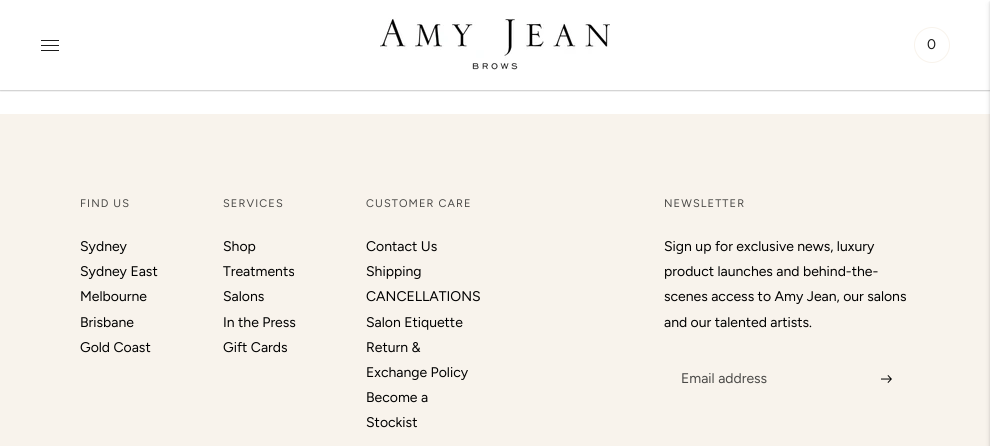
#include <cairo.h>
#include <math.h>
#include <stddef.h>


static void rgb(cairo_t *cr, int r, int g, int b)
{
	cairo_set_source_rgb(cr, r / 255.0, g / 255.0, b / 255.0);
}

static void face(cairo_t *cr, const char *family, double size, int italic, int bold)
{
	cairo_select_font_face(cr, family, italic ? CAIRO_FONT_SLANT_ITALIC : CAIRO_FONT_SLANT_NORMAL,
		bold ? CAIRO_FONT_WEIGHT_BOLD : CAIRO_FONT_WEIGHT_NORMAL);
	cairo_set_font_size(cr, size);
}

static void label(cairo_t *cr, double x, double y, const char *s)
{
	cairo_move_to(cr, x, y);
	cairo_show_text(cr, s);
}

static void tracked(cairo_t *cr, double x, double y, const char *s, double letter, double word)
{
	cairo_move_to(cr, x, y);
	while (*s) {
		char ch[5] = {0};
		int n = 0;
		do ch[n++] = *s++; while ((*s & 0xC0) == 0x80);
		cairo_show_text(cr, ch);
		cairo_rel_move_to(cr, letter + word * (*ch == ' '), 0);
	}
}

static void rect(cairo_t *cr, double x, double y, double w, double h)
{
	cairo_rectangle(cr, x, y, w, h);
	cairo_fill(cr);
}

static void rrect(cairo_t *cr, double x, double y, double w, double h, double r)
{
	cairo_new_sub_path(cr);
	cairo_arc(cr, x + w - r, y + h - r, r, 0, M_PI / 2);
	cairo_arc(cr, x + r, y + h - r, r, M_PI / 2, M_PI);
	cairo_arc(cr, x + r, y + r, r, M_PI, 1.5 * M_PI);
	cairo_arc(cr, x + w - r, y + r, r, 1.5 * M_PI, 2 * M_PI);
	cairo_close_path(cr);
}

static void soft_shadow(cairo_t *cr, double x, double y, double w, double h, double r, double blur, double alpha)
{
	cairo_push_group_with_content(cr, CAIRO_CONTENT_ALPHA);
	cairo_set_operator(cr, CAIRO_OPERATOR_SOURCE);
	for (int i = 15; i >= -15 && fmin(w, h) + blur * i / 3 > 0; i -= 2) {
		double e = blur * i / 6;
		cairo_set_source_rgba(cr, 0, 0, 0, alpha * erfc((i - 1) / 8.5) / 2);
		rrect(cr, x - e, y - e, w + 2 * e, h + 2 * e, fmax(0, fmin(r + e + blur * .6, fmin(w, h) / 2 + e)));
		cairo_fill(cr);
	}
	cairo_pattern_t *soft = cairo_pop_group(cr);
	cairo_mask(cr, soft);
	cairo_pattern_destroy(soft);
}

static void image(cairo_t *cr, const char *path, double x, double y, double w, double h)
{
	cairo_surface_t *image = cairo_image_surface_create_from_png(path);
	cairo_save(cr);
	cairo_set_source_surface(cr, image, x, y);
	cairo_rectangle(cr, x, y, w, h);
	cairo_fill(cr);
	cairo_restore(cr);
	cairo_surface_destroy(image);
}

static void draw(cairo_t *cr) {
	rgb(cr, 255, 255, 255);
	cairo_paint(cr);
	cairo_save(cr);
	cairo_rectangle(cr, 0, 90, 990, 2);
	cairo_clip(cr);
	rgb(cr, 0, 0, 0);
	soft_shadow(cr, 0, 1, 990, 90, 0, 0.5, 0.2);
	cairo_restore(cr);
	cairo_new_path(cr);
	cairo_move_to(cr, 41, 40.5);
	cairo_line_to(cr, 59, 40.5);
	cairo_move_to(cr, 41, 45.5);
	cairo_line_to(cr, 59, 45.5);
	cairo_move_to(cr, 41, 50.5);
	cairo_line_to(cr, 59, 50.5);
	rgb(cr, 27, 27, 27);
	cairo_set_line_width(cr, 1);
	cairo_stroke(cr);
	image(cr, "image0.png", 380, 18, 230, 52);
	cairo_arc(cr, 932, 45, 17.5, 0, 2 * M_PI);
	rgb(cr, 248, 243, 236);
	cairo_stroke(cr);
	face(cr, "Figtree", 14, 0, 0);
	rgb(cr, 27, 27, 27);
	label(cr, 927, 49, "0");
	rgb(cr, 248, 243, 236);
	rect(cr, 0, 114, 990, 332);
	rgb(cr, 0, 0, 0);
	soft_shadow(cr, 990, 4, 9, 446, 0, 3, 0.1);
	soft_shadow(cr, 990, 2, 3, 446, 0, 1, 0.15);
	face(cr, "Figtree", 11, 0, 0);
	rgb(cr, 74, 73, 71);
	tracked(cr, 80, 207, "FIND US", 1.1, 0);
	face(cr, "Figtree", 14, 0, 0);
	rgb(cr, 0, 0, 0);
	label(cr, 80, 251, "Sydney");
	label(cr, 80, 276, "Sydney East");
	label(cr, 80, 301, "Melbourne");
	label(cr, 80, 327, "Brisbane");
	label(cr, 80, 352, "Gold Coast");
	face(cr, "Figtree", 11, 0, 0);
	rgb(cr, 74, 73, 71);
	tracked(cr, 223, 207, "SERVICES", 1.1, 0);
	face(cr, "Figtree", 14, 0, 0);
	rgb(cr, 0, 0, 0);
	label(cr, 223, 251, "Shop");
	label(cr, 223, 276, "Treatments");
	label(cr, 223, 301, "Salons");
	label(cr, 223, 327, "In the Press");
	label(cr, 223, 352, "Gift Cards");
	face(cr, "Figtree", 11, 0, 0);
	rgb(cr, 74, 73, 71);
	tracked(cr, 366, 207, "CUSTOMER CARE", 1.1, 0);
	face(cr, "Figtree", 14, 0, 0);
	rgb(cr, 0, 0, 0);
	label(cr, 366, 251, "Contact Us");
	label(cr, 366, 276, "Shipping");
	label(cr, 366, 301, "CANCELLATIONS");
	label(cr, 366, 327, "Salon Etiquette");
	label(cr, 366, 352, "Return &");
	label(cr, 366, 377, "Exchange Policy");
	label(cr, 366, 402, "Become a");
	label(cr, 366, 427, "Stockist");
	face(cr, "Figtree", 11, 0, 0);
	rgb(cr, 74, 73, 71);
	tracked(cr, 664, 207, "NEWSLETTER", 1.1, 0);
	face(cr, "Figtree", 14, 0, 0);
	rgb(cr, 0, 0, 0);
	label(cr, 664, 251, "Sign up for exclusive news, luxury");
	label(cr, 664, 276, "product launches and behind-the-");
	label(cr, 664, 301, "scenes access to Amy Jean, our salons");
	label(cr, 664, 327, "and our talented artists.");
	rgb(cr, 74, 73, 71);
	label(cr, 681, 383, "Email address");
	image(cr, "image1.png", 881, 375, 11, 8);
}

int main(void) {
	cairo_surface_t *surface = cairo_image_surface_create(CAIRO_FORMAT_RGB24, 990, 446);
	cairo_t *cr = cairo_create(surface);
	cairo_font_options_t *options = cairo_font_options_create();
	cairo_font_options_set_hint_metrics(options, CAIRO_HINT_METRICS_OFF);
	cairo_font_options_set_hint_style(options, CAIRO_HINT_STYLE_NONE);
	cairo_set_font_options(cr, options);
	cairo_set_miter_limit(cr, 4);
	draw(cr);
	cairo_surface_write_to_png(surface, "render.png");
	cairo_font_options_destroy(options);
	cairo_destroy(cr);
	cairo_surface_destroy(surface);
	return 0;
}
